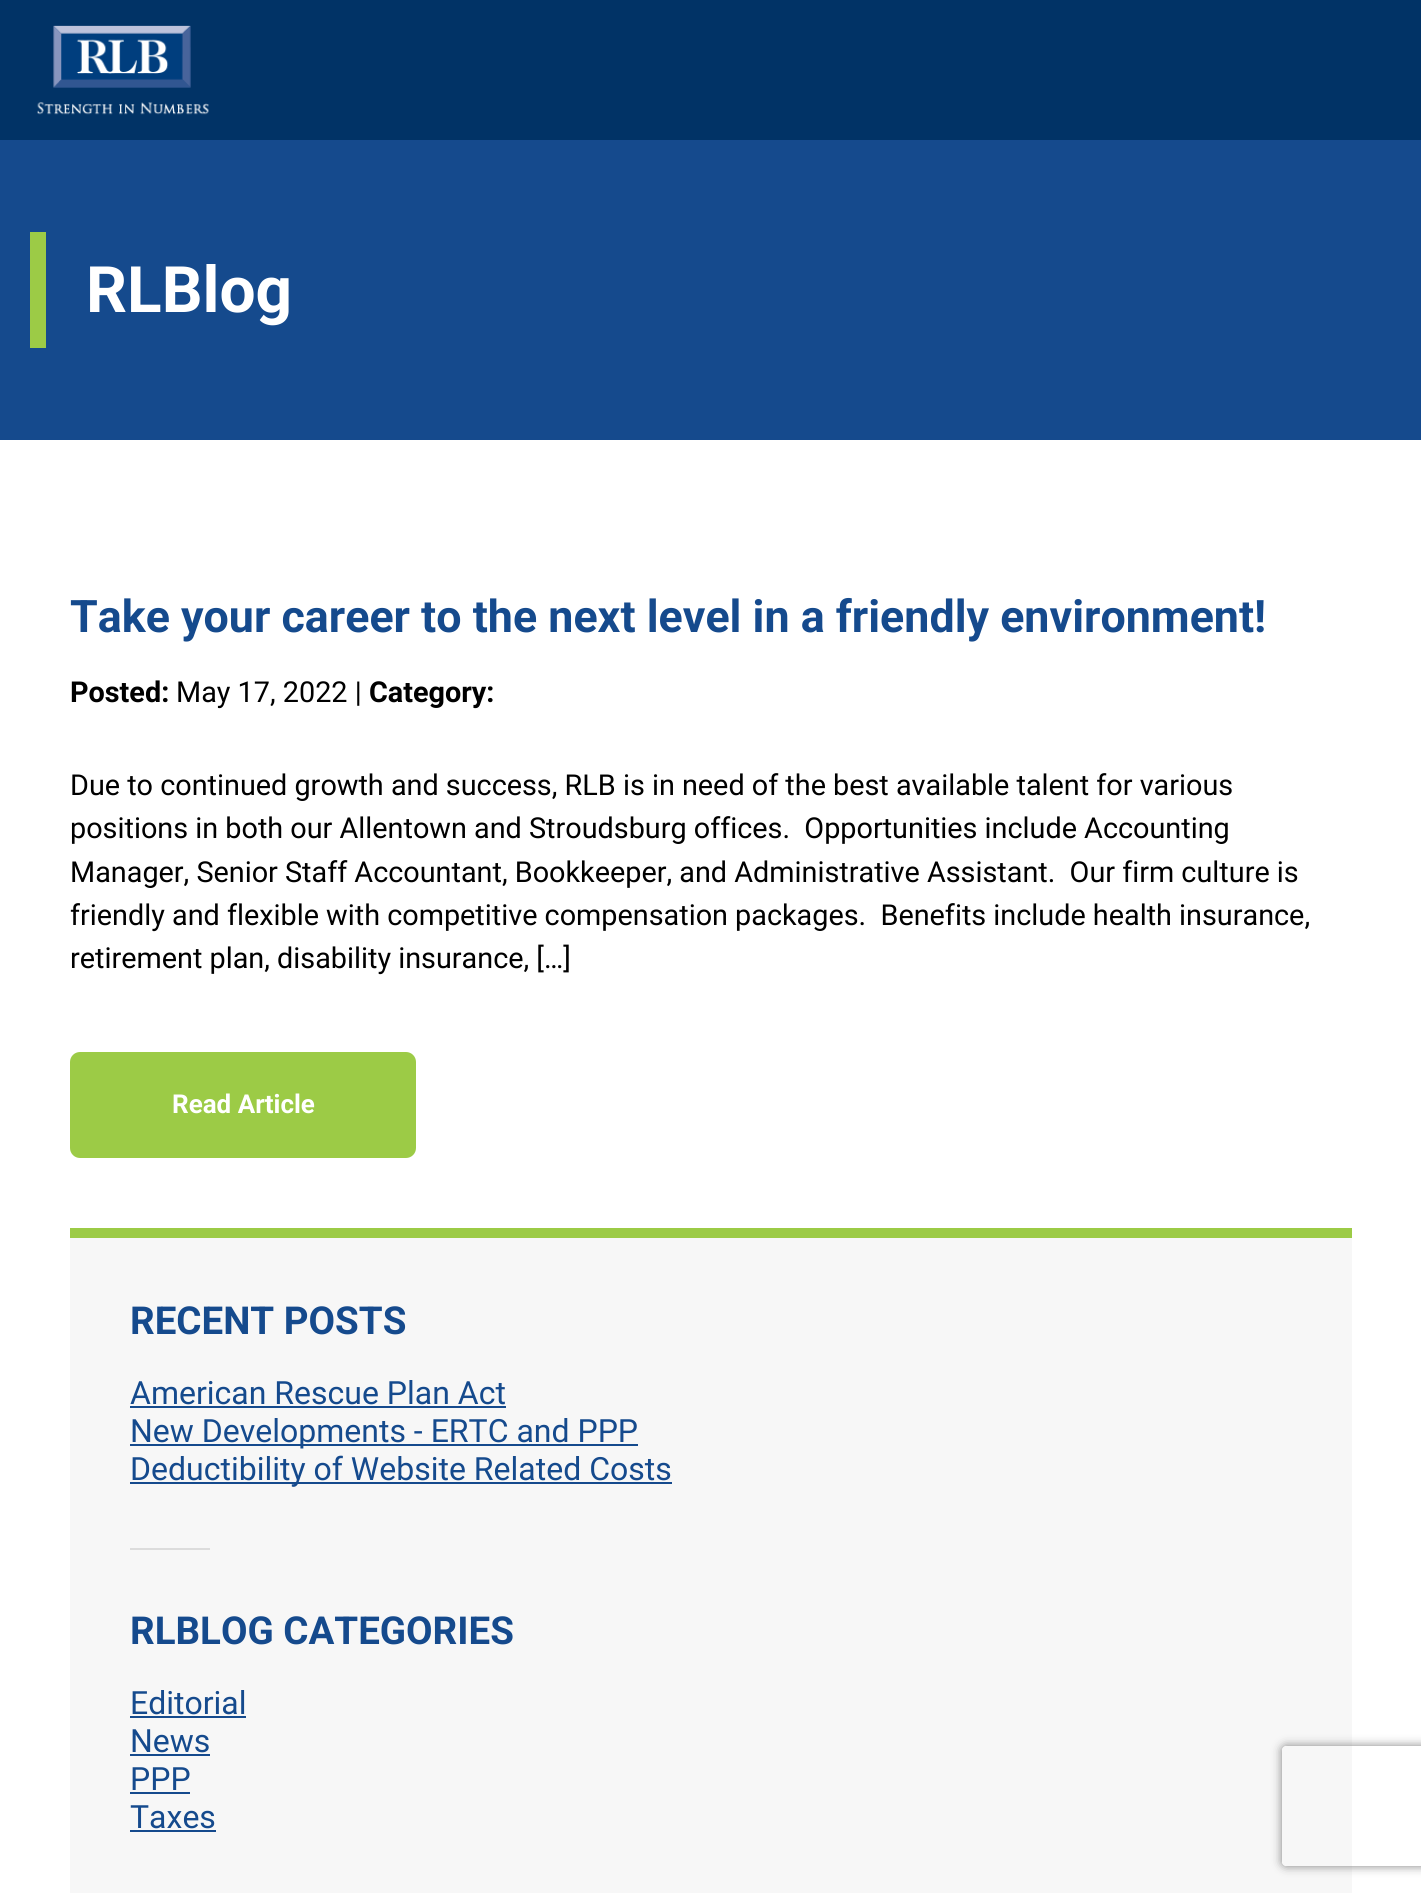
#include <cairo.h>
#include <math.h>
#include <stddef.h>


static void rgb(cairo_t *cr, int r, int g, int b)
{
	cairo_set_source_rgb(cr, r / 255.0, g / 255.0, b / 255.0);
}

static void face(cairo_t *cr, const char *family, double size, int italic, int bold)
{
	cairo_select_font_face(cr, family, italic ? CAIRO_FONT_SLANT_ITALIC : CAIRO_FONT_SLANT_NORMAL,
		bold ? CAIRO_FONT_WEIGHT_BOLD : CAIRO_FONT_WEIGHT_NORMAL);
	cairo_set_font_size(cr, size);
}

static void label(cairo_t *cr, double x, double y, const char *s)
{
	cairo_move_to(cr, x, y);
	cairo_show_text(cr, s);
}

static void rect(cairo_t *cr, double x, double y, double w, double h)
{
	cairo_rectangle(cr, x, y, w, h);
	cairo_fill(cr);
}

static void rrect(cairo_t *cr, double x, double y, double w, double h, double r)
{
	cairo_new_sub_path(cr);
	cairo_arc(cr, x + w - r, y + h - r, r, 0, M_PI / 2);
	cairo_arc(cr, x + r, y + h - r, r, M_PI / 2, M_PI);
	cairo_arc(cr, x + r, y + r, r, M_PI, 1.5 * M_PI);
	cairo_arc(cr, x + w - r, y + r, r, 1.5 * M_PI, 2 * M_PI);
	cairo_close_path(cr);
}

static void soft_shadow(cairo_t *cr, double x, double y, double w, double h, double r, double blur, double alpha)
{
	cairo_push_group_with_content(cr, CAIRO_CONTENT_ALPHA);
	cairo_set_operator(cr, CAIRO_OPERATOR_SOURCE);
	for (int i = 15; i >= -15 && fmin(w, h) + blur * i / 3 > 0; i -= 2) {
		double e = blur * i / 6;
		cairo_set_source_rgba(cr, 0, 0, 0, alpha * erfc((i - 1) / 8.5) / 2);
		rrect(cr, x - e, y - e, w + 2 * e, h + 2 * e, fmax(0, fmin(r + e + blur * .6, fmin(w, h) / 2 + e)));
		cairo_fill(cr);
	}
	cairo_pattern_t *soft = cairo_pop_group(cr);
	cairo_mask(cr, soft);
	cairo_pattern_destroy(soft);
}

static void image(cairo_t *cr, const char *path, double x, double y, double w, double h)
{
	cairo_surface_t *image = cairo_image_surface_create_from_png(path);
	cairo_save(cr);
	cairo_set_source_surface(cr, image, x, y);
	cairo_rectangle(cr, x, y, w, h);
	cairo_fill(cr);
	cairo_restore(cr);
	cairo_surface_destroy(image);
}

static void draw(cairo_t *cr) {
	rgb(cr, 255, 255, 255);
	cairo_paint(cr);
	rgb(cr, 1, 51, 102);
	rect(cr, 0, 0, 1421, 140);
	image(cr, "image0.png", 37, 25, 172, 90);
	rgb(cr, 21, 74, 141);
	rect(cr, 0, 140, 1421, 300);
	rgb(cr, 156, 203, 70);
	rect(cr, 30, 232, 16, 116);
	face(cr, "Roboto", 64, 0, 1);
	rgb(cr, 255, 255, 255);
	label(cr, 86, 312, "RLBlog");
	face(cr, "Roboto", 44.8, 0, 1);
	rgb(cr, 21, 74, 141);
	label(cr, 70, 632, "Take your career to the next level in a friendly environment!");
	face(cr, "Roboto", 28.8, 0, 1);
	rgb(cr, 0, 0, 0);
	label(cr, 70, 702, "Posted:");
	face(cr, "Roboto", 28.8, 0, 0);
	label(cr, 176, 702, "May 17, 2022 |");
	face(cr, "Roboto", 28.8, 0, 1);
	label(cr, 369, 702, "Category:");
	face(cr, "Roboto", 28.8, 0, 0);
	label(cr, 70, 795, "Due to continued growth and success, RLB is in need of the best available talent for various");
	label(cr, 70, 838, "positions in both our Allentown and Stroudsburg offices.  Opportunities include Accounting");
	label(cr, 70, 882, "Manager, Senior Staff Accountant, Bookkeeper, and Administrative Assistant.  Our firm culture is");
	label(cr, 70, 925, "friendly and flexible with competitive compensation packages.  Benefits include health insurance,");
	label(cr, 70, 968, "retirement plan, disability insurance, […]");
	rgb(cr, 156, 203, 70);
	rrect(cr, 71, 1053, 344, 104, 9);
	cairo_fill_preserve(cr);
	cairo_stroke(cr);
	face(cr, "Roboto", 26, 0, 1);
	rgb(cr, 255, 255, 255);
	label(cr, 172, 1113, "Read Article");
	rgb(cr, 247, 247, 247);
	rect(cr, 70, 1238, 1282, 655);
	rgb(cr, 156, 203, 70);
	rect(cr, 70, 1228, 1282, 10);
	face(cr, "Roboto", 38.5, 0, 1);
	rgb(cr, 21, 74, 141);
	label(cr, 130, 1334, "RECENT POSTS");
	face(cr, "Roboto", 32, 0, 0);
	label(cr, 130, 1404, "American Rescue Plan Act");
	rect(cr, 130, 1406, 376, 2);
	rect(cr, 130, 1444, 508, 2);
	label(cr, 130, 1442, "New Developments - ERTC and PPP");
	rect(cr, 130, 1482, 542, 2);
	label(cr, 130, 1480, "Deductibility of Website Related Costs");
	rgb(cr, 220, 220, 220);
	rect(cr, 130, 1548, 80, 2);
	face(cr, "Roboto", 38.5, 0, 1);
	rgb(cr, 21, 74, 141);
	label(cr, 130, 1644, "RLBLOG CATEGORIES");
	face(cr, "Roboto", 32, 0, 0);
	label(cr, 130, 1714, "Editorial");
	rect(cr, 130, 1716, 116, 2);
	label(cr, 130, 1752, "News");
	rect(cr, 130, 1754, 80, 2);
	label(cr, 130, 1790, "PPP");
	rect(cr, 130, 1792, 60, 2);
	label(cr, 130, 1828, "Taxes");
	rect(cr, 130, 1830, 86, 2);
	cairo_save(cr);
	cairo_set_fill_rule(cr, CAIRO_FILL_RULE_EVEN_ODD);
	cairo_new_path(cr);
	cairo_move_to(cr, 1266, 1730);
	cairo_line_to(cr, 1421, 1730);
	cairo_line_to(cr, 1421, 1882);
	cairo_line_to(cr, 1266, 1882);
	cairo_close_path(cr);
	cairo_move_to(cr, 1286, 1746);
	cairo_line_to(cr, 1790, 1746);
	cairo_curve_to(cr, 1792, 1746, 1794, 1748, 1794, 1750);
	cairo_line_to(cr, 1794, 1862);
	cairo_curve_to(cr, 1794, 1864, 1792, 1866, 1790, 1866);
	cairo_line_to(cr, 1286, 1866);
	cairo_curve_to(cr, 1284, 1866, 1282, 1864, 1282, 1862);
	cairo_line_to(cr, 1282, 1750);
	cairo_curve_to(cr, 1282, 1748, 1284, 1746, 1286, 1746);
	cairo_close_path(cr);
	cairo_clip(cr);
	rgb(cr, 128, 128, 128);
	soft_shadow(cr, 1282, 1746, 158, 120, 4, 5, 1);
	cairo_restore(cr);
}

int main(void) {
	cairo_surface_t *surface = cairo_image_surface_create(CAIRO_FORMAT_RGB24, 1421, 1893);
	cairo_t *cr = cairo_create(surface);
	cairo_font_options_t *options = cairo_font_options_create();
	cairo_font_options_set_hint_metrics(options, CAIRO_HINT_METRICS_OFF);
	cairo_font_options_set_hint_style(options, CAIRO_HINT_STYLE_NONE);
	cairo_set_font_options(cr, options);
	cairo_set_miter_limit(cr, 4);
	draw(cr);
	cairo_surface_write_to_png(surface, "render.png");
	cairo_font_options_destroy(options);
	cairo_destroy(cr);
	cairo_surface_destroy(surface);
	return 0;
}
